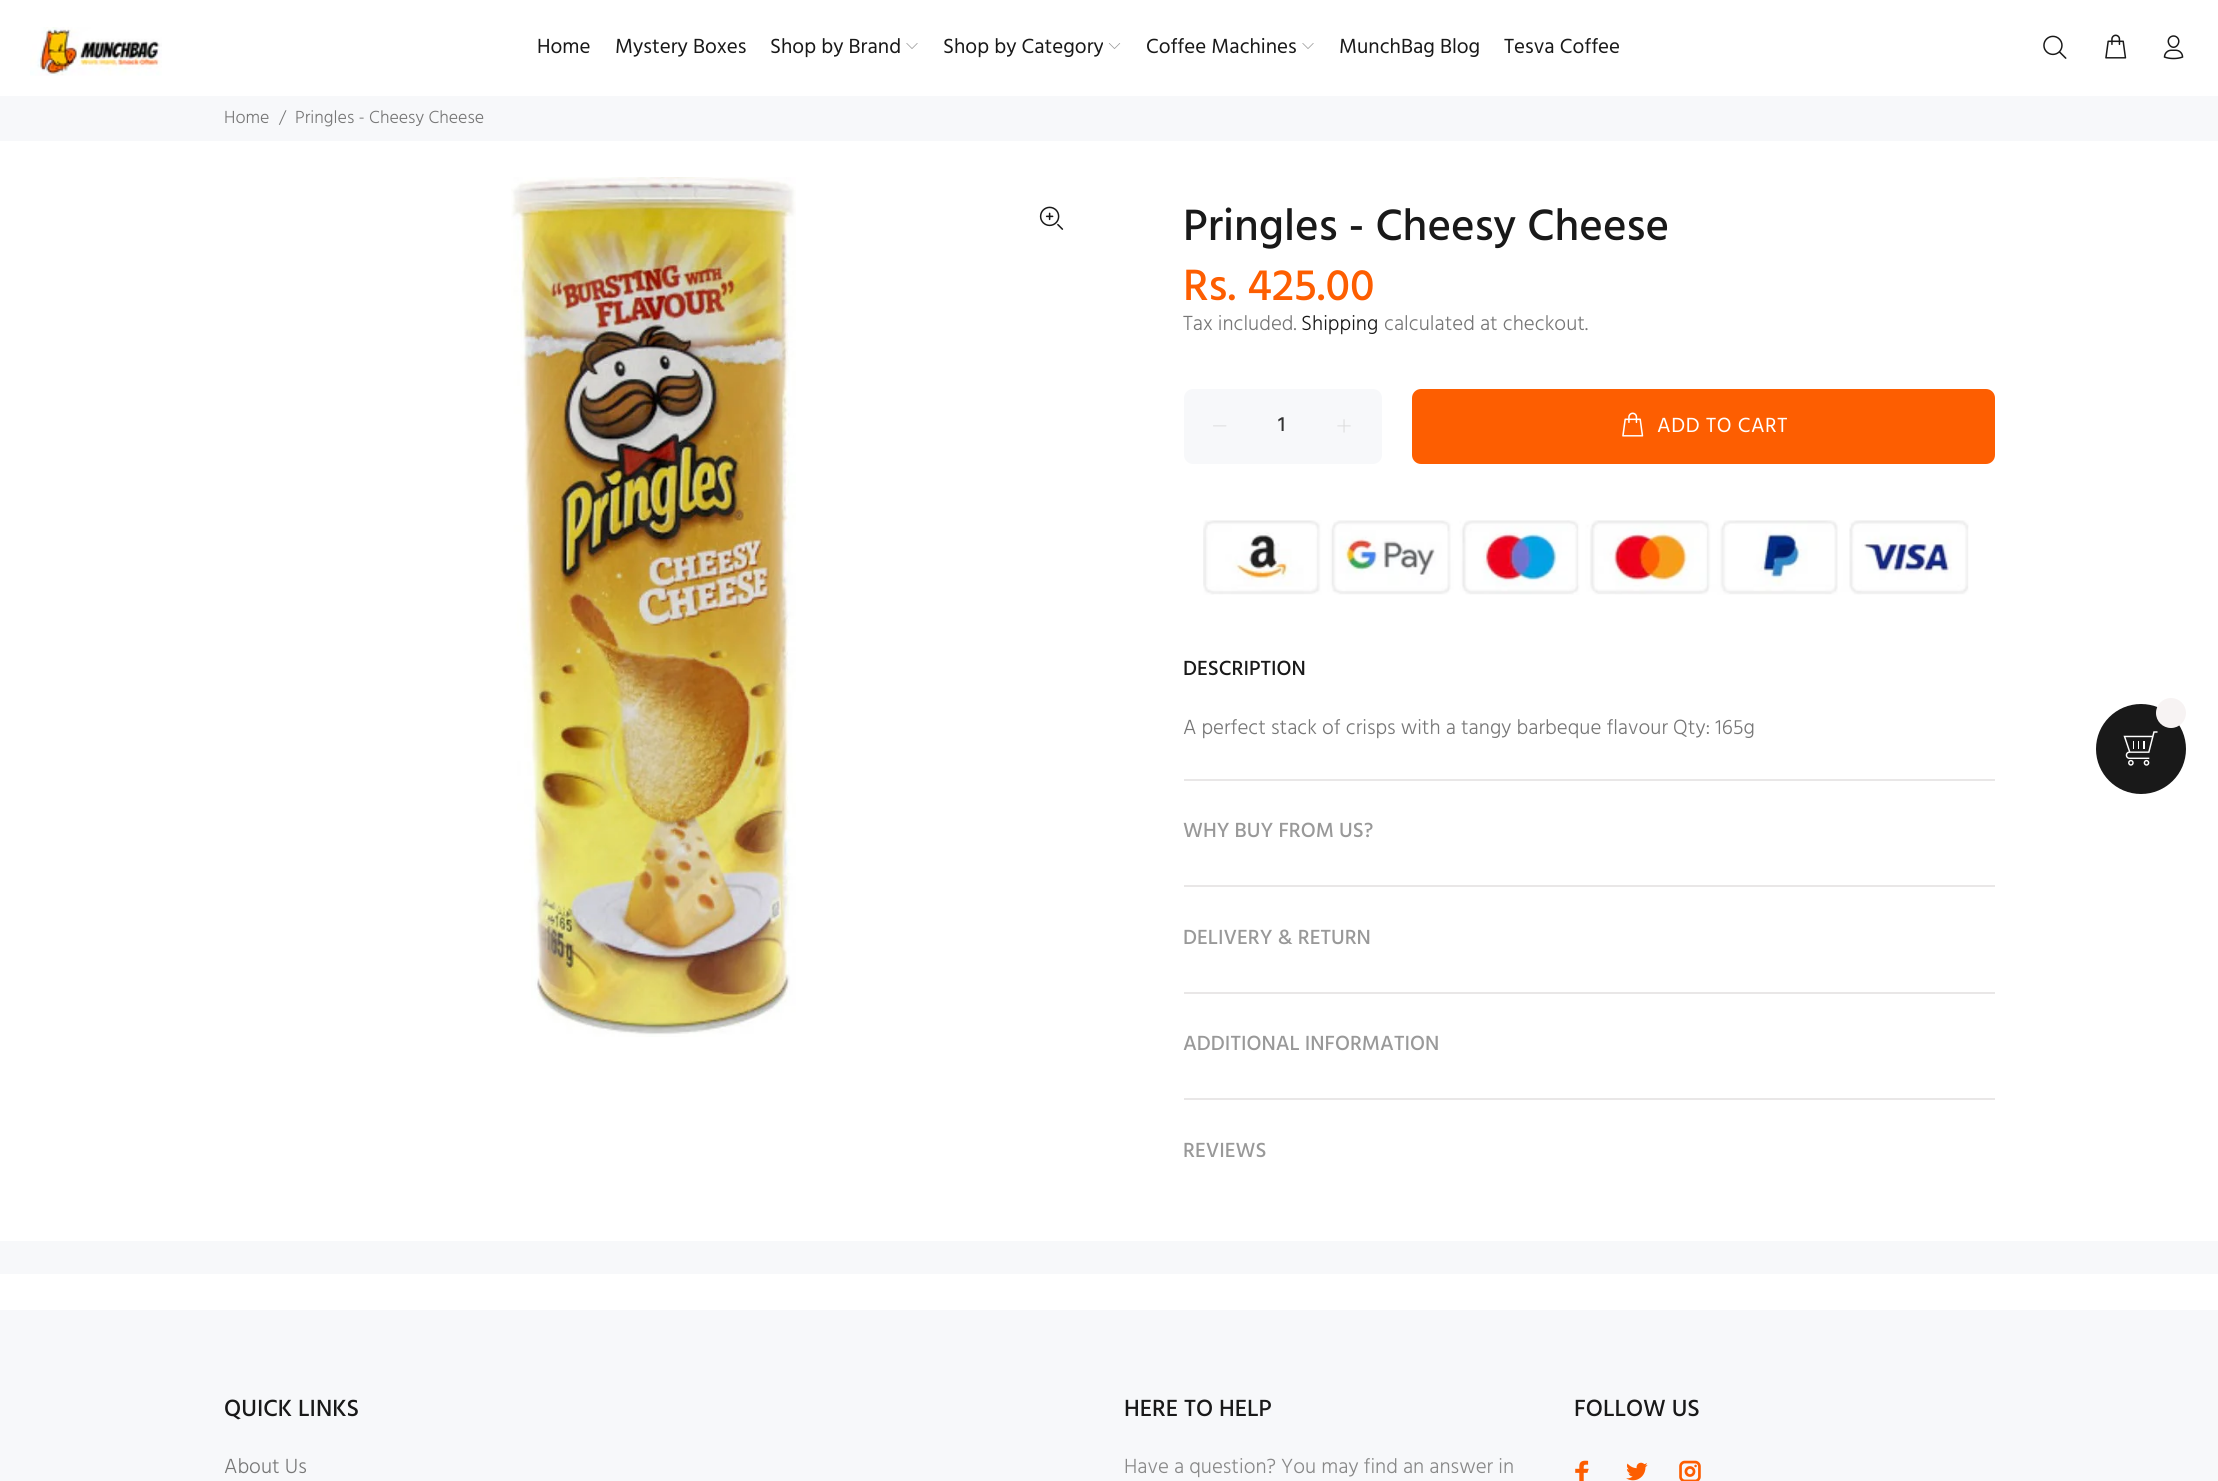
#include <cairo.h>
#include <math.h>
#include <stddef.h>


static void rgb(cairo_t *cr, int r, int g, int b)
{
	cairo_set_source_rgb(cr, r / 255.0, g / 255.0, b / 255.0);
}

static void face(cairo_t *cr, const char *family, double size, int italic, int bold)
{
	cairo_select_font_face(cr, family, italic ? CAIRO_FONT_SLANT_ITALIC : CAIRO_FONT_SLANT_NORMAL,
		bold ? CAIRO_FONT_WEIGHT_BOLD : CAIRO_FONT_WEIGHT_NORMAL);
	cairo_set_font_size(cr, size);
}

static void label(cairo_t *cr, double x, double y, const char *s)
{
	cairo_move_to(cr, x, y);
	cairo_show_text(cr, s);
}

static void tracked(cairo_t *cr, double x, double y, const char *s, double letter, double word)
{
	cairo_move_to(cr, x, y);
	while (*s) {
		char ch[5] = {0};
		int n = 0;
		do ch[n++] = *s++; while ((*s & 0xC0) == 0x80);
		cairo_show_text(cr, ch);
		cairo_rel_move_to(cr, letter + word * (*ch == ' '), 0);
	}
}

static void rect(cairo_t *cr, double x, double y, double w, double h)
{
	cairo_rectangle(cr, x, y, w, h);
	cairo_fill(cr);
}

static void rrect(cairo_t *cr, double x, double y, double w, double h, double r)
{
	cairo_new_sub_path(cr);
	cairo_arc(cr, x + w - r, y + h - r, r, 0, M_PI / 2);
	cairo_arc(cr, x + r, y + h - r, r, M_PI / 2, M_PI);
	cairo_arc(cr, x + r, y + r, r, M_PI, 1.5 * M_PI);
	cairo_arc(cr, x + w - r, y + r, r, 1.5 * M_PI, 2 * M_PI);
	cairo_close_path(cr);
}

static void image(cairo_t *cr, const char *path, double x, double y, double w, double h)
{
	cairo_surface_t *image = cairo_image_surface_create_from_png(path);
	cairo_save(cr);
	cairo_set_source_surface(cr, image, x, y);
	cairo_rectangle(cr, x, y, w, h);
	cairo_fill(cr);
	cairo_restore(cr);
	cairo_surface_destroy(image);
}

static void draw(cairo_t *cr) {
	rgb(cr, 255, 255, 255);
	cairo_paint(cr);
	image(cr, "image0.png", 30, 27, 132, 49);
	face(cr, "Hind", 21, 0, 0);
	rgb(cr, 25, 25, 25);
	label(cr, 537, 53, "Home");
	label(cr, 615, 53, "Mystery Boxes");
	label(cr, 770, 53, "Shop by Brand");
	image(cr, "image1.png", 906, 43, 12, 6);
	label(cr, 943, 53, "Shop by Category");
	image(cr, "image2.png", 1108, 43, 13, 6);
	label(cr, 1146, 53, "Coffee Machines");
	image(cr, "image1.png", 1302, 43, 12, 6);
	label(cr, 1339, 53, "MunchBag Blog");
	label(cr, 1504, 53, "Tesva Coffee");
	image(cr, "image3.png", 2043, 35, 24, 24);
	image(cr, "image4.png", 2105, 34, 22, 25);
	image(cr, "image5.png", 2163, 35, 21, 25);
	rgb(cr, 247, 248, 250);
	rect(cr, 0, 96, 2218, 45);
	face(cr, "Hind Light", 18, 0, 0);
	rgb(cr, 119, 119, 119);
	label(cr, 224, 123, "Home");
	label(cr, 279, 123, "/");
	label(cr, 295, 123, "Pringles - Cheesy Cheese");
	image(cr, "image6.png", 511, 177, 285, 860);
	image(cr, "image7.png", 1039, 206, 25, 24);
	face(cr, "Hind Medium", 45, 0, 0);
	rgb(cr, 25, 25, 25);
	label(cr, 1183, 240, "Pringles - Cheesy Cheese");
	rgb(cr, 253, 94, 1);
	label(cr, 1183, 300, "Rs. 425.00");
	face(cr, "Hind Light", 21, 0, 0);
	rgb(cr, 119, 119, 119);
	label(cr, 1183, 330, "Tax included.");
	rgb(cr, 25, 25, 25);
	label(cr, 1301, 330, "Shipping");
	rgb(cr, 119, 119, 119);
	label(cr, 1384, 330, "calculated at checkout.");
	rgb(cr, 247, 248, 250);
	rrect(cr, 1184, 389, 198, 75, 9);
	cairo_fill(cr);
	image(cr, "image8.png", 1213, 425, 14, 2);
	face(cr, "Hind Medium", 21, 0, 0);
	rgb(cr, 51, 51, 51);
	label(cr, 1278, 431, "1");
	image(cr, "image9.png", 1337, 419, 14, 14);
	rgb(cr, 253, 94, 1);
	rrect(cr, 1412, 389, 583, 75, 9);
	cairo_fill(cr);
	image(cr, "image10.png", 1622, 412, 22, 25);
	face(cr, "Hind", 21, 0, 0);
	rgb(cr, 255, 255, 255);
	tracked(cr, 1657, 432, "ADD TO CART", 0.6, 0);
	image(cr, "image11.png", 1203, 520, 766, 75);
	rgb(cr, 233, 231, 231);
	rect(cr, 1184, 779, 811, 2);
	face(cr, "Hind Medium", 21, 0, 0);
	rgb(cr, 25, 25, 25);
	label(cr, 1183, 675, "DESCRIPTION");
	face(cr, "Hind Light", 21, 0, 0);
	rgb(cr, 119, 119, 119);
	label(cr, 1183, 734, "A perfect stack of crisps with a tangy barbeque flavour Qty: 165g");
	rgb(cr, 233, 231, 231);
	rect(cr, 1184, 885, 811, 2);
	face(cr, "Hind Medium", 21, 0, 0);
	rgb(cr, 153, 153, 153);
	label(cr, 1183, 837, "WHY BUY FROM US?");
	rgb(cr, 233, 231, 231);
	rect(cr, 1184, 992, 811, 2);
	rgb(cr, 153, 153, 153);
	label(cr, 1183, 944, "DELIVERY & RETURN");
	rgb(cr, 233, 231, 231);
	rect(cr, 1184, 1098, 811, 2);
	rgb(cr, 153, 153, 153);
	label(cr, 1183, 1050, "ADDITIONAL INFORMATION");
	label(cr, 1183, 1157, "REVIEWS");
	rgb(cr, 247, 248, 250);
	rect(cr, 0, 1241, 2218, 33);
	rgb(cr, 25, 25, 25);
	cairo_new_path(cr);
	cairo_arc(cr, 2141, 749, 45, 0, 2 * M_PI);
	cairo_fill(cr);
	rgb(cr, 247, 243, 243);
	cairo_arc(cr, 2171, 713, 15, 0, 2 * M_PI);
	cairo_fill(cr);
	image(cr, "image12.png", 2123, 731, 35, 35);
	rgb(cr, 247, 248, 250);
	rect(cr, 0, 1310, 2218, 171);
	face(cr, "Hind Medium", 24, 0, 0);
	rgb(cr, 25, 25, 25);
	label(cr, 224, 1416, "QUICK LINKS");
	face(cr, "Hind Light", 21, 0, 0);
	rgb(cr, 119, 119, 119);
	label(cr, 224, 1473, "About Us");
	face(cr, "Hind Medium", 24, 0, 0);
	rgb(cr, 25, 25, 25);
	label(cr, 1124, 1416, "HERE TO HELP");
	face(cr, "Hind Light", 21, 0, 0);
	rgb(cr, 136, 136, 136);
	label(cr, 1124, 1473, "Have a question? You may find an answer in");
	face(cr, "Hind Medium", 24, 0, 0);
	rgb(cr, 25, 25, 25);
	label(cr, 1574, 1416, "FOLLOW US");
	image(cr, "image13.png", 1575, 1460, 14, 21);
	image(cr, "image14.png", 1626, 1462, 22, 19);
	image(cr, "image15.png", 1679, 1460, 22, 21);
}

int main(void) {
	cairo_surface_t *surface = cairo_image_surface_create(CAIRO_FORMAT_RGB24, 2218, 1481);
	cairo_t *cr = cairo_create(surface);
	cairo_font_options_t *options = cairo_font_options_create();
	cairo_font_options_set_hint_metrics(options, CAIRO_HINT_METRICS_OFF);
	cairo_font_options_set_hint_style(options, CAIRO_HINT_STYLE_NONE);
	cairo_set_font_options(cr, options);
	cairo_set_miter_limit(cr, 4);
	draw(cr);
	cairo_surface_write_to_png(surface, "render.png");
	cairo_font_options_destroy(options);
	cairo_destroy(cr);
	cairo_surface_destroy(surface);
	return 0;
}
